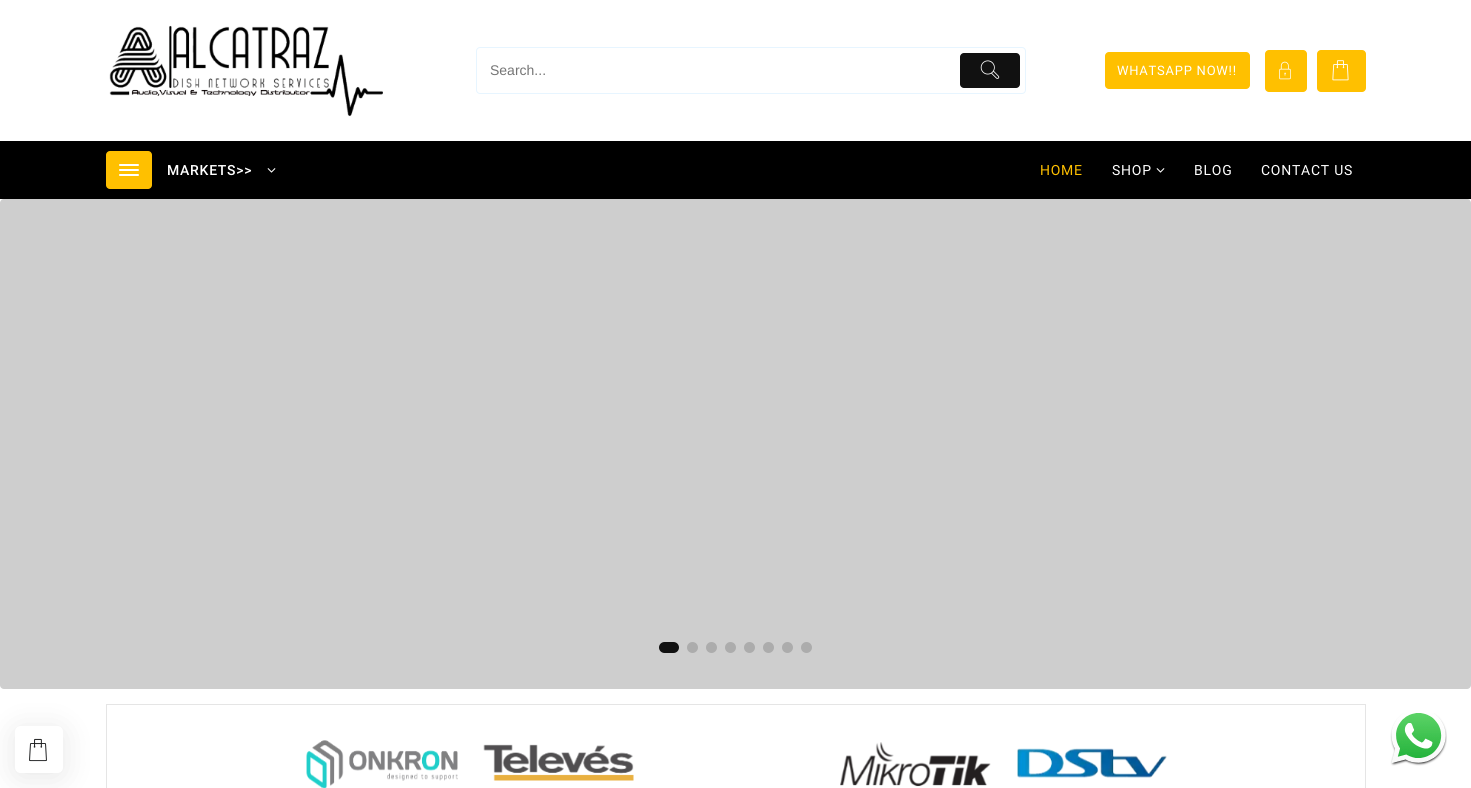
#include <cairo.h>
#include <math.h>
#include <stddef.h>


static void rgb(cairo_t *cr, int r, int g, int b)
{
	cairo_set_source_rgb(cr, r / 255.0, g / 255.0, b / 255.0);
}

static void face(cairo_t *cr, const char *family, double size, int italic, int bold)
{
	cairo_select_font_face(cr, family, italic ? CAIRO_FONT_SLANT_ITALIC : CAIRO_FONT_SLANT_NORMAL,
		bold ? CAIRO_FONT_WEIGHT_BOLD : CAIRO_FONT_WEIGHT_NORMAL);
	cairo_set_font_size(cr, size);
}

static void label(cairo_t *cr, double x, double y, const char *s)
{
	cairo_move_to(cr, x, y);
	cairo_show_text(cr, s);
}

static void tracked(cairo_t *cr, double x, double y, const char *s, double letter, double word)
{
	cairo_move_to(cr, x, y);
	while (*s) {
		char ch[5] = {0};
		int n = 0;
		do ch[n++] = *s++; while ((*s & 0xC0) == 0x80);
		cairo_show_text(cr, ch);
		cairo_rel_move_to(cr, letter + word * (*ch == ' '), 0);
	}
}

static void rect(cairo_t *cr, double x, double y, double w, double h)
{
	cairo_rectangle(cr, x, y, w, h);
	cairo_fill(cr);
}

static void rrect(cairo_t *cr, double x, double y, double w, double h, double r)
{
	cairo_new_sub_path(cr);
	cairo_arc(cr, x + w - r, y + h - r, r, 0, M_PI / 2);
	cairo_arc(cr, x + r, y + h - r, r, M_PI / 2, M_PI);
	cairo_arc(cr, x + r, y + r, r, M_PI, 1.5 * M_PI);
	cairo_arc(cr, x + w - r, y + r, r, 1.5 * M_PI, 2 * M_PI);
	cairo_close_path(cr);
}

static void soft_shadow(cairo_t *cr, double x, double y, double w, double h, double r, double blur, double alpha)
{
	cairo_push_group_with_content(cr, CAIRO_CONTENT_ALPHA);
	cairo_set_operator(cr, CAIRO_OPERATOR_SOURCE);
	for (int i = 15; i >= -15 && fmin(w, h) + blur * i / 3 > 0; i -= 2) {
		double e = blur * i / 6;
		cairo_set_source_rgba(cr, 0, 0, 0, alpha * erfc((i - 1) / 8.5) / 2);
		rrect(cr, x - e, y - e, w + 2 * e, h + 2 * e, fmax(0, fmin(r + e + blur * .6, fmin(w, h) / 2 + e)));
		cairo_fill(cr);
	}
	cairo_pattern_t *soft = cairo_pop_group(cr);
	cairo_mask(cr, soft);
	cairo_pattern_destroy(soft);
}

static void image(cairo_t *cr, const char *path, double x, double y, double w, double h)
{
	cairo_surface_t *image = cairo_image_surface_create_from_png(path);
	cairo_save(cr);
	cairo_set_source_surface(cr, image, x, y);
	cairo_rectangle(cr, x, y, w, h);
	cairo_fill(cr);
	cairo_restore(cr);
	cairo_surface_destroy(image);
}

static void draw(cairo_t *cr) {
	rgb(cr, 255, 255, 255);
	cairo_paint(cr);
	cairo_save(cr);
	cairo_rectangle(cr, 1, 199, 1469, 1);
	cairo_clip(cr);
	rgb(cr, 0, 0, 0);
	soft_shadow(cr, 1, 5, 1469, 197, 0, 6, 0.06);
	cairo_restore(cr);
	image(cr, "image0.png", 109, 25, 274, 92);
	rrect(cr, 476.5, 47.5, 549, 46, 3.5);
	rgb(cr, 231, 245, 255);
	cairo_set_line_width(cr, 1);
	cairo_stroke(cr);
	face(cr, "Liberation Sans", 14, 0, 0);
	rgb(cr, 117, 117, 117);
	label(cr, 490, 75, "Search...");
	rgb(cr, 17, 17, 17);
	rrect(cr, 960, 53, 60, 35, 4);
	cairo_fill(cr);
	image(cr, "image1.png", 980, 60, 20, 19);
	rgb(cr, 255, 192, 0);
	rrect(cr, 1105, 52, 145, 37, 4);
	cairo_fill(cr);
	face(cr, "Roboto", 13, 0, 0);
	rgb(cr, 255, 255, 255);
	tracked(cr, 1117, 75, "WHATSAPP NOW!!", 0.75, 0);
	rgb(cr, 255, 192, 0);
	rrect(cr, 1265, 50, 42, 42, 4);
	cairo_fill(cr);
	image(cr, "image2.png", 1279, 61, 12, 19);
	rrect(cr, 1317, 50, 49, 42, 4);
	cairo_fill(cr);
	image(cr, "image3.png", 1332, 60, 17, 21);
	rgb(cr, 0, 0, 0);
	rect(cr, 0, 141, 1471, 58);
	rgb(cr, 255, 192, 0);
	rrect(cr, 106, 151, 46, 38, 4);
	cairo_fill(cr);
	rgb(cr, 255, 255, 255);
	rrect(cr, 119, 164, 20, 2, 1);
	cairo_fill(cr);
	rrect(cr, 119, 169, 20, 2, 1);
	cairo_fill(cr);
	rrect(cr, 119, 174, 20, 2, 1);
	cairo_fill(cr);
	face(cr, "Roboto Medium", 14, 0, 0);
	tracked(cr, 167, 175, "MARKETS>>", 0.75, 0);
	image(cr, "image4.png", 267, 168, 9, 5);
	face(cr, "Roboto", 14, 0, 0);
	rgb(cr, 255, 192, 0);
	tracked(cr, 1040, 175, "HOME", 0.75, 0);
	rgb(cr, 255, 255, 255);
	tracked(cr, 1112, 175, "SHOP", 0.75, 0);
	image(cr, "image4.png", 1156, 168, 9, 5);
	tracked(cr, 1194, 175, "BLOG", 0.75, 0);
	tracked(cr, 1261, 175, "CONTACT US", 0.75, 0);
	rgb(cr, 206, 206, 206);
	rrect(cr, 0, 199, 1471, 490, 4);
	cairo_fill(cr);
	rgb(cr, 17, 17, 17);
	rrect(cr, 659, 642, 20, 11, 5.5);
	cairo_fill(cr);
	rgb(cr, 172, 172, 172);
	cairo_arc(cr, 692.5, 647.5, 5.5, 0, 2 * M_PI);
	cairo_fill(cr);
	cairo_arc(cr, 711.5, 647.5, 5.5, 0, 2 * M_PI);
	cairo_fill(cr);
	cairo_arc(cr, 730.5, 647.5, 5.5, 0, 2 * M_PI);
	cairo_fill(cr);
	cairo_arc(cr, 749.5, 647.5, 5.5, 0, 2 * M_PI);
	cairo_fill(cr);
	cairo_arc(cr, 768.5, 647.5, 5.5, 0, 2 * M_PI);
	cairo_fill(cr);
	cairo_arc(cr, 787.5, 647.5, 5.5, 0, 2 * M_PI);
	cairo_fill(cr);
	cairo_arc(cr, 806.5, 647.5, 5.5, 0, 2 * M_PI);
	cairo_fill(cr);
	cairo_rectangle(cr, 106.5, 704.5, 1259, 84);
	rgb(cr, 229, 229, 229);
	cairo_stroke(cr);
	image(cr, "image5.png", 306, 740, 152, 48);
	image(cr, "image6.png", 483, 744, 151, 37);
	image(cr, "image7.png", 840, 742, 151, 45);
	image(cr, "image8.png", 1017, 748, 150, 30);
	cairo_save(cr);
	cairo_set_fill_rule(cr, CAIRO_FILL_RULE_EVEN_ODD);
	cairo_new_path(cr);
	cairo_move_to(cr, 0, 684);
	cairo_line_to(cr, 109, 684);
	cairo_line_to(cr, 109, 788);
	cairo_line_to(cr, 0, 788);
	cairo_close_path(cr);
	cairo_move_to(cr, 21, 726);
	cairo_line_to(cr, 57, 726);
	cairo_curve_to(cr, 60.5, 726, 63, 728.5, 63, 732);
	cairo_line_to(cr, 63, 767);
	cairo_curve_to(cr, 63, 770.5, 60.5, 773, 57, 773);
	cairo_line_to(cr, 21, 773);
	cairo_curve_to(cr, 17.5, 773, 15, 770.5, 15, 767);
	cairo_line_to(cr, 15, 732);
	cairo_curve_to(cr, 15, 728.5, 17.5, 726, 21, 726);
	cairo_close_path(cr);
	cairo_clip(cr);
	rgb(cr, 0, 0, 0);
	soft_shadow(cr, 15, 730, 48, 47, 6, 15, 0.1);
	cairo_restore(cr);
	image(cr, "image9.png", 29, 738, 18, 24);
	image(cr, "image10.png", 1390, 713, 57, 53);
}

int main(void) {
	cairo_surface_t *surface = cairo_image_surface_create(CAIRO_FORMAT_RGB24, 1471, 788);
	cairo_t *cr = cairo_create(surface);
	cairo_font_options_t *options = cairo_font_options_create();
	cairo_font_options_set_hint_metrics(options, CAIRO_HINT_METRICS_OFF);
	cairo_font_options_set_hint_style(options, CAIRO_HINT_STYLE_NONE);
	cairo_set_font_options(cr, options);
	cairo_set_miter_limit(cr, 4);
	draw(cr);
	cairo_surface_write_to_png(surface, "render.png");
	cairo_font_options_destroy(options);
	cairo_destroy(cr);
	cairo_surface_destroy(surface);
	return 0;
}
